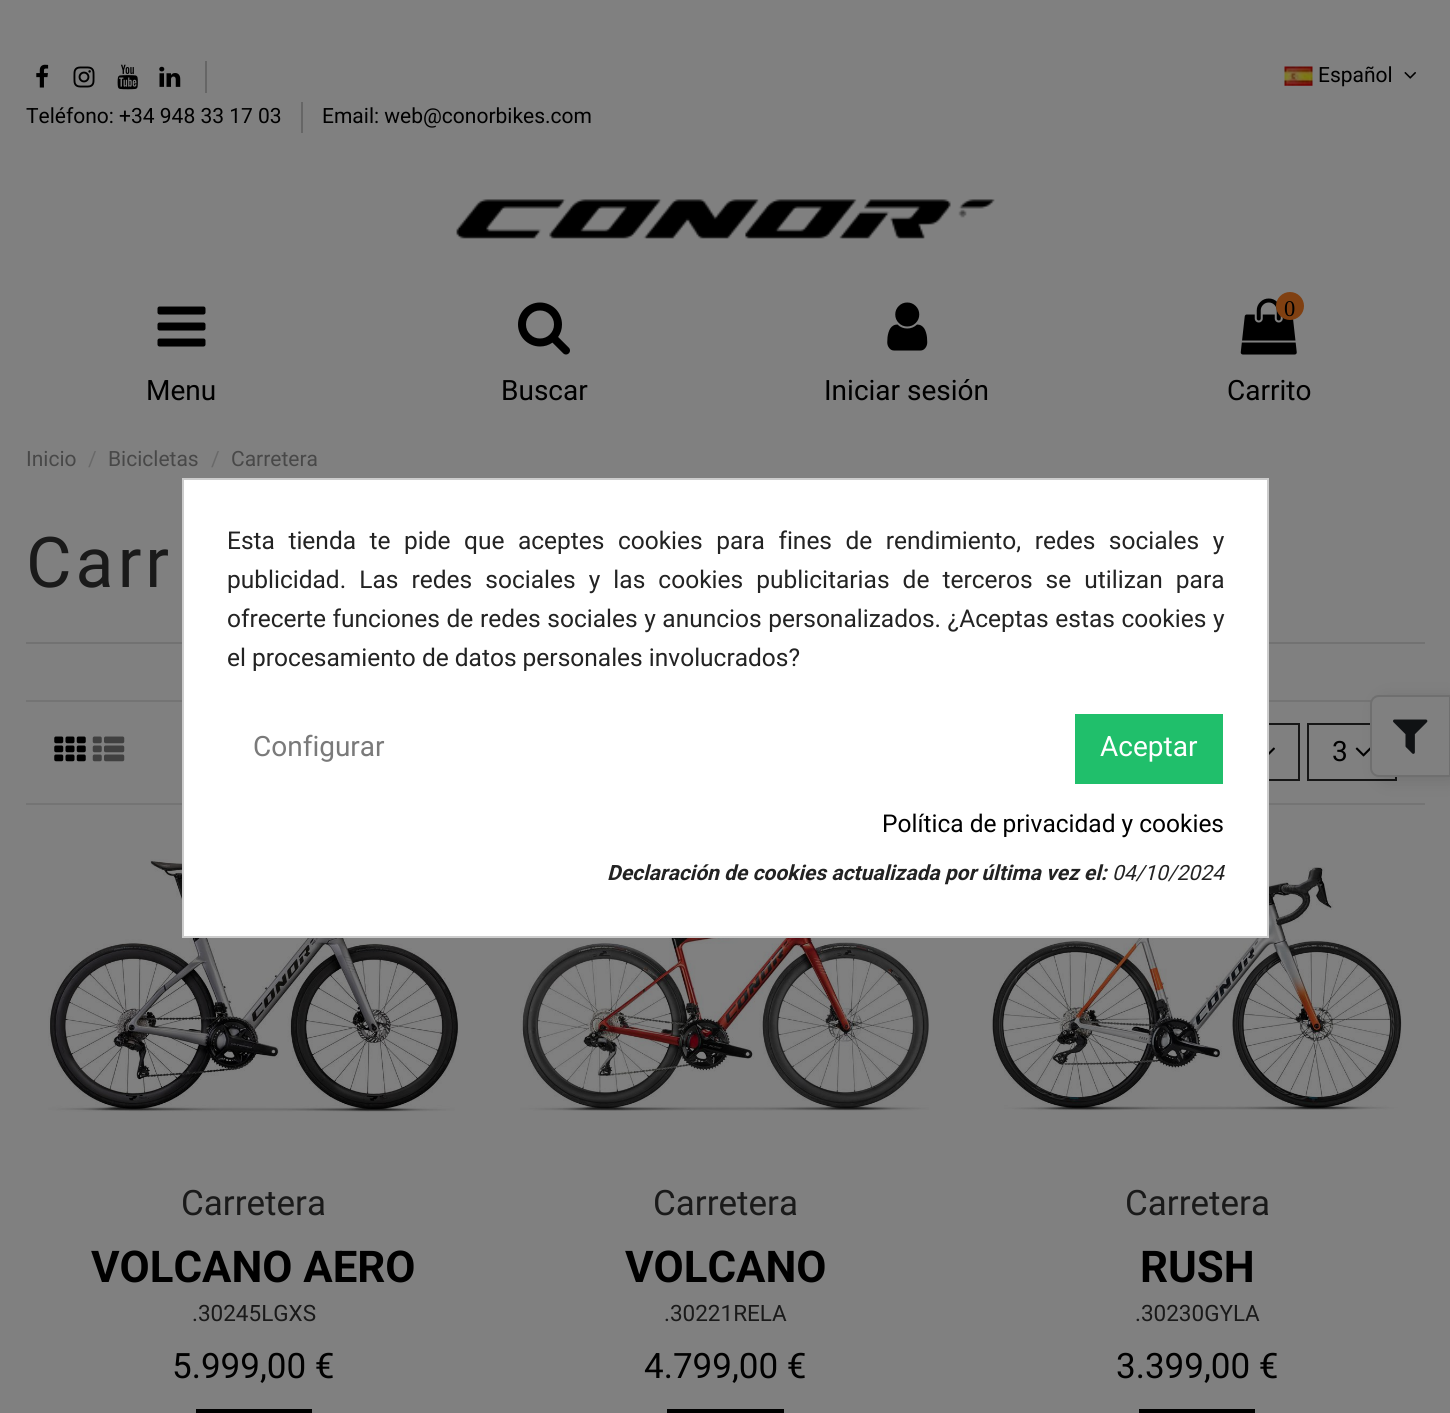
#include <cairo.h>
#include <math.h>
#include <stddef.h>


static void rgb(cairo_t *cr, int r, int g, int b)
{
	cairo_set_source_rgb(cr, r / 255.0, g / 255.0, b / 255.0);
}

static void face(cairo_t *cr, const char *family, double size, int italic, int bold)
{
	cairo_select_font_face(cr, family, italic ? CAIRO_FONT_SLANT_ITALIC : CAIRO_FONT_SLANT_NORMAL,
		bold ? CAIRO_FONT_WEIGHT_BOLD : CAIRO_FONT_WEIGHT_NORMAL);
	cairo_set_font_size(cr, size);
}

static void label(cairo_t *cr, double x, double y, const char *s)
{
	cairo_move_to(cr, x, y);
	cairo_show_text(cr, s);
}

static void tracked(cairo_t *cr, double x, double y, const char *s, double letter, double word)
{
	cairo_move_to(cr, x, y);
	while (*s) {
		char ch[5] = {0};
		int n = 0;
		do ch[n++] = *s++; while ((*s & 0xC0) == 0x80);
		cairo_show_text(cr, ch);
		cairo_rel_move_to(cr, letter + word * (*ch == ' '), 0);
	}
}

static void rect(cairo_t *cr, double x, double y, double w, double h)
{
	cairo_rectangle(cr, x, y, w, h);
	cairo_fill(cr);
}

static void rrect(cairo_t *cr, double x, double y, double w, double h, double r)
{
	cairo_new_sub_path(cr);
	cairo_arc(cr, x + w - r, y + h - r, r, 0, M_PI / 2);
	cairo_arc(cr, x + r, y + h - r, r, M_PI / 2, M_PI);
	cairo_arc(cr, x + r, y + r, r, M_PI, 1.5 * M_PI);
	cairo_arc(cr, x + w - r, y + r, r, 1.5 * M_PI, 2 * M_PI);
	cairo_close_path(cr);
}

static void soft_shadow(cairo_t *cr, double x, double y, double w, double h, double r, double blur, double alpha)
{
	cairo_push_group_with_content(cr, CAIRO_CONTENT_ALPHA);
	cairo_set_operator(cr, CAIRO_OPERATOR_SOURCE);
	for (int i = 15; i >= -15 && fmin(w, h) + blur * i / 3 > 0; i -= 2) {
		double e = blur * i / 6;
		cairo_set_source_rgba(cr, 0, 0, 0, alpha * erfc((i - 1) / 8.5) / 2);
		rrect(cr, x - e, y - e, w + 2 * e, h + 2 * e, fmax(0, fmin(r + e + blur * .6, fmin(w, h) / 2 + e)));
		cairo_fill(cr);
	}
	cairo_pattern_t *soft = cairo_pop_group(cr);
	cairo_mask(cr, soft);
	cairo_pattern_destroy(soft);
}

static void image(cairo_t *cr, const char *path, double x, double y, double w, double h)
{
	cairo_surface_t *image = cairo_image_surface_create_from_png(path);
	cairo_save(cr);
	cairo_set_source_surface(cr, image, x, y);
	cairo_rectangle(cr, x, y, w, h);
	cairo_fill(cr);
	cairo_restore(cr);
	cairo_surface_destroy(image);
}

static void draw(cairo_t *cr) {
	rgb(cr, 128, 128, 128);
	cairo_paint(cr);
	image(cr, "image0.png", 1284, 66, 29, 20);
	face(cr, "Roboto", 21, 0, 0);
	rgb(cr, 0, 0, 0);
	label(cr, 1318, 82, "Español");
	image(cr, "image1.png", 1404, 72, 12, 7);
	image(cr, "image2.png", 36, 64, 13, 24);
	image(cr, "image3.png", 73, 66, 22, 22);
	image(cr, "image4.png", 117, 64, 21, 26);
	image(cr, "image5.png", 159, 66, 22, 21);
	rgb(cr, 102, 102, 102);
	rect(cr, 205, 61, 2, 32);
	rgb(cr, 0, 0, 0);
	label(cr, 26, 123, "Teléfono: +34 948 33 17 03");
	rgb(cr, 102, 102, 102);
	rect(cr, 301, 102, 2, 31);
	rgb(cr, 0, 0, 0);
	label(cr, 322, 123, "Email: web@conorbikes.com");
	image(cr, "image6.png", 456, 199, 539, 40);
	image(cr, "image7.png", 157, 306, 49, 41);
	face(cr, "Roboto", 28, 0, 0);
	label(cr, 146, 400, "Menu");
	image(cr, "image8.png", 518, 302, 52, 53);
	label(cr, 501, 400, "Buscar");
	image(cr, "image9.png", 887, 302, 41, 49);
	label(cr, 824, 400, "Iniciar sesión");
	image(cr, "image10.png", 1240, 298, 57, 57);
	rgb(cr, 128, 64, 17);
	cairo_arc(cr, 1290, 306, 14, 0, 2 * M_PI);
	cairo_fill(cr);
	face(cr, "Liberation Serif", 22.5, 0, 0);
	rgb(cr, 0, 0, 0);
	label(cr, 1284, 316, "0");
	face(cr, "Roboto", 28, 0, 0);
	label(cr, 1227, 400, "Carrito");
	face(cr, "Roboto", 21, 0, 0);
	rgb(cr, 72, 72, 72);
	label(cr, 26, 466, "Inicio");
	rgb(cr, 105, 105, 105);
	label(cr, 88, 466, "/");
	rgb(cr, 72, 72, 72);
	label(cr, 108, 466, "Bicicletas");
	rgb(cr, 105, 105, 105);
	label(cr, 211, 466, "/");
	rgb(cr, 72, 72, 72);
	label(cr, 231, 466, "Carretera");
	rgb(cr, 114, 114, 114);
	rect(cr, 26, 642, 1399, 2);
	face(cr, "Roboto", 70, 0, 0);
	rgb(cr, 26, 26, 26);
	tracked(cr, 26, 587, "Carr", 4, 0);
	rgb(cr, 116, 116, 116);
	rect(cr, 26, 700, 1345, 2);
	rect(cr, 26, 803, 1399, 2);
	image(cr, "image11.png", 54, 736, 32, 26);
	image(cr, "image12.png", 92, 736, 33, 26);
	cairo_rectangle(cr, 1053, 724, 246, 56);
	rgb(cr, 22, 22, 22);
	cairo_stroke(cr);
	image(cr, "image13.png", 1269, 747, 6, 8);
	cairo_rectangle(cr, 1308, 724, 88, 56);
	cairo_stroke(cr);
	face(cr, "Roboto", 28, 0, 0);
	rgb(cr, 0, 0, 0);
	label(cr, 1332, 761, "3");
	image(cr, "image14.png", 1355, 747, 15, 10);
	image(cr, "image15.png", 48, 859, 411, 253);
	face(cr, "Roboto", 35, 0, 0);
	rgb(cr, 26, 26, 26);
	label(cr, 181, 1215, "Carretera");
	face(cr, "Roboto", 43.75, 0, 1);
	rgb(cr, 0, 0, 0);
	label(cr, 91, 1282, "VOLCANO AERO");
	face(cr, "Roboto", 22.5, 0, 0);
	rgb(cr, 26, 26, 26);
	label(cr, 192, 1321, ".30245LGXS");
	face(cr, "Roboto", 35, 0, 0);
	rgb(cr, 0, 0, 0);
	label(cr, 172, 1378, "5.999,00 €");
	rect(cr, 196, 1409, 116, 4);
	image(cr, "image16.png", 507, 938, 422, 173);
	rgb(cr, 26, 26, 26);
	label(cr, 653, 1215, "Carretera");
	face(cr, "Roboto", 43.75, 0, 1);
	rgb(cr, 0, 0, 0);
	label(cr, 625, 1282, "VOLCANO");
	face(cr, "Roboto", 22.5, 0, 0);
	rgb(cr, 26, 26, 26);
	label(cr, 664, 1321, ".30221RELA");
	face(cr, "Roboto", 35, 0, 0);
	rgb(cr, 0, 0, 0);
	label(cr, 644, 1378, "4.799,00 €");
	rect(cr, 667, 1409, 117, 4);
	image(cr, "image17.png", 991, 859, 411, 252);
	rgb(cr, 26, 26, 26);
	label(cr, 1125, 1215, "Carretera");
	face(cr, "Roboto", 43.75, 0, 1);
	rgb(cr, 0, 0, 0);
	label(cr, 1140, 1282, "RUSH");
	face(cr, "Roboto", 22.5, 0, 0);
	rgb(cr, 26, 26, 26);
	label(cr, 1135, 1321, ".30230GYLA");
	face(cr, "Roboto", 35, 0, 0);
	rgb(cr, 0, 0, 0);
	label(cr, 1116, 1378, "3.399,00 €");
	rect(cr, 1139, 1409, 116, 4);
	rgb(cr, 255, 255, 255);
	cairo_rectangle(cr, 183, 479, 1085, 458);
	cairo_fill_preserve(cr);
	rgb(cr, 204, 204, 204);
	cairo_stroke(cr);
	face(cr, "Roboto", 24.5, 0, 0);
	rgb(cr, 35, 35, 35);
	tracked(cr, 227, 549, "Esta tienda te pide que aceptes cookies para fines de rendimiento, redes sociales y", 0, 7.4);
	tracked(cr, 227, 588, "publicidad. Las redes sociales y las cookies publicitarias de terceros se utilizan para", 0, 7);
	tracked(cr, 227, 627, "ofrecerte funciones de redes sociales y anuncios personalizados. ¿Aceptas estas cookies y", 0, 0.5);
	label(cr, 227, 666, "el procesamiento de datos personales involucrados?");
	face(cr, "Roboto", 28, 0, 0);
	rgb(cr, 122, 122, 122);
	label(cr, 253, 756, "Configurar");
	rgb(cr, 32, 191, 107);
	rect(cr, 1075, 714, 148, 70);
	rgb(cr, 255, 255, 255);
	label(cr, 1100, 756, "Aceptar");
	face(cr, "Roboto", 24.5, 0, 0);
	rgb(cr, 0, 0, 0);
	label(cr, 882, 832, "Política de privacidad y cookies");
	face(cr, "Roboto", 21, 1, 1);
	rgb(cr, 35, 35, 35);
	label(cr, 607, 880, "Declaración de cookies actualizada por última vez el:");
	face(cr, "Roboto", 21, 1, 0);
	label(cr, 1112, 880, "04/10/2024");
	rgb(cr, 0, 0, 0);
	soft_shadow(cr, 1377, 697, 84, 85, 11, 8, 0.1);
	rgb(cr, 128, 128, 128);
	cairo_new_path(cr);
	cairo_move_to(cr, 1379, 696);
	cairo_line_to(cr, 1450, 696);
	cairo_line_to(cr, 1450, 776);
	cairo_line_to(cr, 1379, 776);
	cairo_curve_to(cr, 1374.5, 776, 1371, 772.5, 1371, 768);
	cairo_line_to(cr, 1371, 704);
	cairo_curve_to(cr, 1371, 699.5, 1374.5, 696, 1379, 696);
	cairo_close_path(cr);
	cairo_fill_preserve(cr);
	rgb(cr, 111, 111, 111);
	cairo_stroke(cr);
	image(cr, "image18.png", 1393, 719, 35, 35);
}

int main(void) {
	cairo_surface_t *surface = cairo_image_surface_create(CAIRO_FORMAT_RGB24, 1450, 1413);
	cairo_t *cr = cairo_create(surface);
	cairo_font_options_t *options = cairo_font_options_create();
	cairo_font_options_set_hint_metrics(options, CAIRO_HINT_METRICS_OFF);
	cairo_font_options_set_hint_style(options, CAIRO_HINT_STYLE_NONE);
	cairo_set_font_options(cr, options);
	cairo_set_miter_limit(cr, 4);
	draw(cr);
	cairo_surface_write_to_png(surface, "render.png");
	cairo_font_options_destroy(options);
	cairo_destroy(cr);
	cairo_surface_destroy(surface);
	return 0;
}
